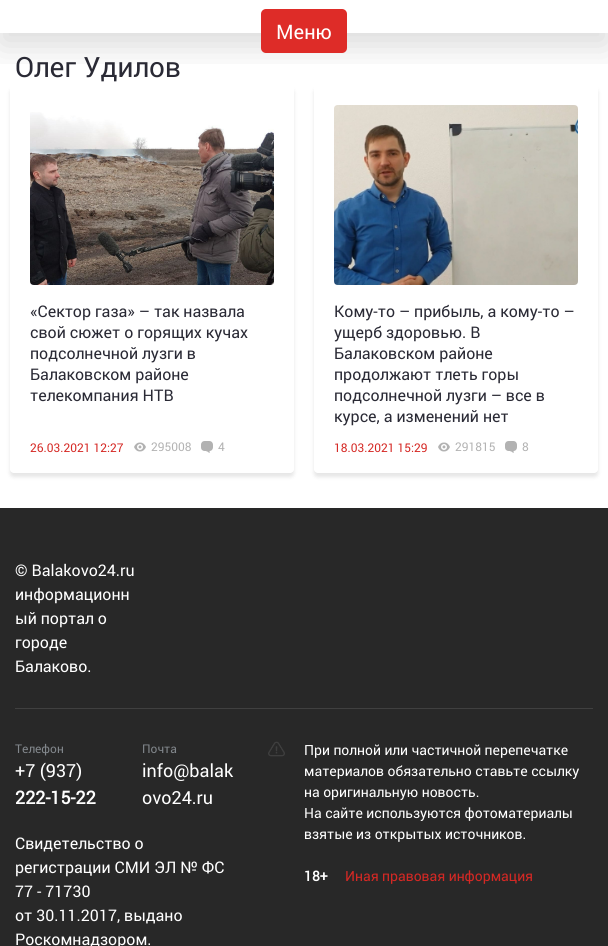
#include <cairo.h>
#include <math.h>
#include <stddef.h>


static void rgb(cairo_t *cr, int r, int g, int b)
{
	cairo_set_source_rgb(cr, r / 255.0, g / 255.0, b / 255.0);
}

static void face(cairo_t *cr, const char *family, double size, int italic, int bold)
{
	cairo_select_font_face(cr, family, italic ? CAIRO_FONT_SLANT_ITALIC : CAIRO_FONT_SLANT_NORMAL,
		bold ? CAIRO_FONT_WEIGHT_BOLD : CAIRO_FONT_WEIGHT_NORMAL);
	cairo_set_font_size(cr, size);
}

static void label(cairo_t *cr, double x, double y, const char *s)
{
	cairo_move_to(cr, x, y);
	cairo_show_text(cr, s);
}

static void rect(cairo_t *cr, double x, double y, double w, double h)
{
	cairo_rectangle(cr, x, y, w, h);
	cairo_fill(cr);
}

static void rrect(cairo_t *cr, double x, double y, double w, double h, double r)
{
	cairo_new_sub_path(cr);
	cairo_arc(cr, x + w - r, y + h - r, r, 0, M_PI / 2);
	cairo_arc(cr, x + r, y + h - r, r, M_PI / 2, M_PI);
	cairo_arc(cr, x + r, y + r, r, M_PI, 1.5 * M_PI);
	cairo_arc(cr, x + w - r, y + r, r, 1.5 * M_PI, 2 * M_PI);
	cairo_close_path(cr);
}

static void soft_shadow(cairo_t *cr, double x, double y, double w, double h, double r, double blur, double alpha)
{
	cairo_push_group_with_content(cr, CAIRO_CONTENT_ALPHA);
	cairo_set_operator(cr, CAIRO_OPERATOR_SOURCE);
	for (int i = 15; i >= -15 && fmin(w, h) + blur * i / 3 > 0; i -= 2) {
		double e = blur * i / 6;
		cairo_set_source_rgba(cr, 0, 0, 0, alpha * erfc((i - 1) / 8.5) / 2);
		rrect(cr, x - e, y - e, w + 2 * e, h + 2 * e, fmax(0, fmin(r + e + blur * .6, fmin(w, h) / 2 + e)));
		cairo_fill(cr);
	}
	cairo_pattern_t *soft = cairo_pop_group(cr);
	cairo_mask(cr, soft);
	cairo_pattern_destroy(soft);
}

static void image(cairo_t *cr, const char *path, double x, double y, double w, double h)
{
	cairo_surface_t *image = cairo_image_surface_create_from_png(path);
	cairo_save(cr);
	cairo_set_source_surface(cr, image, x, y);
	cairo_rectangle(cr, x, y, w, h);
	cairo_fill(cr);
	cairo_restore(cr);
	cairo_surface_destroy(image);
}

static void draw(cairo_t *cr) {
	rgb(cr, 255, 255, 255);
	cairo_paint(cr);
	cairo_save(cr);
	cairo_rectangle(cr, 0, 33, 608, 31);
	cairo_clip(cr);
	rgb(cr, 0, 0, 0);
	soft_shadow(cr, 0, -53, 608, 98, 0, 17.5, 0.15);
	cairo_restore(cr);
	rgb(cr, 222, 44, 40);
	rrect(cr, 261, 9, 86, 44, 5);
	cairo_fill(cr);
	face(cr, "Roboto", 20, 0, 0);
	rgb(cr, 255, 255, 255);
	label(cr, 276, 39, "Меню");
	face(cr, "Roboto", 28, 0, 0);
	rgb(cr, 42, 42, 53);
	label(cr, 15, 77, "Олег Удилов");
	cairo_save(cr);
	cairo_set_fill_rule(cr, CAIRO_FILL_RULE_EVEN_ODD);
	cairo_new_path(cr);
	cairo_move_to(cr, 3, 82);
	cairo_line_to(cr, 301, 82);
	cairo_line_to(cr, 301, 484);
	cairo_line_to(cr, 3, 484);
	cairo_close_path(cr);
	cairo_move_to(cr, 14, 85);
	cairo_line_to(cr, 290, 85);
	cairo_curve_to(cr, 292, 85, 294, 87, 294, 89);
	cairo_line_to(cr, 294, 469);
	cairo_curve_to(cr, 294, 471, 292, 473, 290, 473);
	cairo_line_to(cr, 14, 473);
	cairo_curve_to(cr, 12, 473, 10, 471, 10, 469);
	cairo_line_to(cr, 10, 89);
	cairo_curve_to(cr, 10, 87, 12, 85, 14, 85);
	cairo_close_path(cr);
	cairo_clip(cr);
	rgb(cr, 0, 0, 0);
	soft_shadow(cr, 10, 89, 284, 388, 4, 2, 0.1);
	cairo_restore(cr);
	image(cr, "image0.png", 30, 112, 244, 173);
	face(cr, "Roboto", 16, 0, 0);
	label(cr, 30, 317, "«Сектор газа» – так назвала");
	label(cr, 30, 338, "свой сюжет о горящих кучах");
	label(cr, 30, 359, "подсолнечной лузги в");
	label(cr, 30, 380, "Балаковском районе");
	label(cr, 30, 401, "телекомпания НТВ");
	face(cr, "Roboto", 12, 0, 0);
	rgb(cr, 213, 40, 36);
	label(cr, 30, 452, "26.03.2021 12:27");
	image(cr, "image1.png", 134, 442, 12, 10);
	rgb(cr, 179, 179, 179);
	label(cr, 151, 451, "295008");
	image(cr, "image2.png", 201, 441, 12, 12);
	label(cr, 218, 451, "4");
	cairo_save(cr);
	cairo_set_fill_rule(cr, CAIRO_FILL_RULE_EVEN_ODD);
	cairo_new_path(cr);
	cairo_move_to(cr, 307, 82);
	cairo_line_to(cr, 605, 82);
	cairo_line_to(cr, 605, 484);
	cairo_line_to(cr, 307, 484);
	cairo_close_path(cr);
	cairo_move_to(cr, 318, 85);
	cairo_line_to(cr, 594, 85);
	cairo_curve_to(cr, 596, 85, 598, 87, 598, 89);
	cairo_line_to(cr, 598, 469);
	cairo_curve_to(cr, 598, 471, 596, 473, 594, 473);
	cairo_line_to(cr, 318, 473);
	cairo_curve_to(cr, 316, 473, 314, 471, 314, 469);
	cairo_line_to(cr, 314, 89);
	cairo_curve_to(cr, 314, 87, 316, 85, 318, 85);
	cairo_close_path(cr);
	cairo_clip(cr);
	rgb(cr, 0, 0, 0);
	soft_shadow(cr, 314, 89, 284, 388, 4, 2, 0.1);
	cairo_restore(cr);
	image(cr, "image3.png", 334, 105, 244, 180);
	face(cr, "Roboto", 16, 0, 0);
	rgb(cr, 42, 42, 53);
	label(cr, 334, 317, "Кому-то – прибыль, а кому-то –");
	label(cr, 334, 338, "ущерб здоровью. В");
	label(cr, 334, 359, "Балаковском районе");
	label(cr, 334, 380, "продолжают тлеть горы");
	label(cr, 334, 401, "подсолнечной лузги – все в");
	label(cr, 334, 422, "курсе, а изменений нет");
	face(cr, "Roboto", 12, 0, 0);
	rgb(cr, 213, 40, 36);
	label(cr, 334, 452, "18.03.2021 15:29");
	image(cr, "image1.png", 438, 442, 12, 10);
	rgb(cr, 179, 179, 179);
	label(cr, 455, 451, "291815");
	image(cr, "image2.png", 505, 441, 12, 12);
	label(cr, 522, 451, "8");
	rgb(cr, 40, 40, 40);
	rect(cr, 0, 508, 608, 438);
	face(cr, "Roboto", 16, 0, 0);
	rgb(cr, 255, 255, 255);
	label(cr, 15, 576, "© Balakovo24.ru");
	label(cr, 15, 600, "информационн");
	label(cr, 15, 624, "ый портал о");
	label(cr, 15, 648, "городе");
	label(cr, 15, 672, "Балаково.");
	rgb(cr, 64, 64, 64);
	rect(cr, 15, 708, 578, 1);
	face(cr, "Roboto", 12, 0, 0);
	rgb(cr, 130, 135, 140);
	label(cr, 15, 753, "Телефон");
	face(cr, "Roboto", 18, 0, 0);
	rgb(cr, 255, 255, 255);
	label(cr, 15, 777, "+7 (937)");
	face(cr, "Roboto", 18, 0, 1);
	label(cr, 15, 804, "222-15-22");
	face(cr, "Roboto", 12, 0, 0);
	rgb(cr, 130, 135, 140);
	label(cr, 142, 753, "Почта");
	face(cr, "Roboto", 18, 0, 0);
	rgb(cr, 255, 255, 255);
	label(cr, 142, 777, "info@balak");
	label(cr, 142, 804, "ovo24.ru");
	face(cr, "Roboto", 16, 0, 0);
	label(cr, 15, 849, "Cвидетельство о");
	label(cr, 15, 873, "регистрации СМИ ЭЛ № ФС");
	label(cr, 15, 897, "77 - 71730");
	label(cr, 15, 921, "от 30.11.2017, выдано");
	label(cr, 15, 945, "Роскомнадзором.");
	image(cr, "image4.png", 268, 741, 17, 16);
	face(cr, "Roboto", 14, 0, 0);
	label(cr, 304, 755, "При полной или частичной перепечатке");
	label(cr, 304, 776, "материалов обязательно ставьте ссылку");
	label(cr, 304, 797, "на оригинальную новость.");
	label(cr, 304, 818, "На сайте используются фотоматериалы");
	label(cr, 304, 839, "взятые из открытых источников.");
	face(cr, "Roboto", 14, 0, 1);
	label(cr, 304, 881, "18+");
	face(cr, "Roboto", 14, 0, 0);
	rgb(cr, 213, 40, 36);
	label(cr, 345, 881, "Иная правовая информация");
}

int main(void) {
	cairo_surface_t *surface = cairo_image_surface_create(CAIRO_FORMAT_RGB24, 608, 946);
	cairo_t *cr = cairo_create(surface);
	cairo_font_options_t *options = cairo_font_options_create();
	cairo_font_options_set_hint_metrics(options, CAIRO_HINT_METRICS_OFF);
	cairo_font_options_set_hint_style(options, CAIRO_HINT_STYLE_NONE);
	cairo_set_font_options(cr, options);
	cairo_set_miter_limit(cr, 4);
	draw(cr);
	cairo_surface_write_to_png(surface, "render.png");
	cairo_font_options_destroy(options);
	cairo_destroy(cr);
	cairo_surface_destroy(surface);
	return 0;
}
